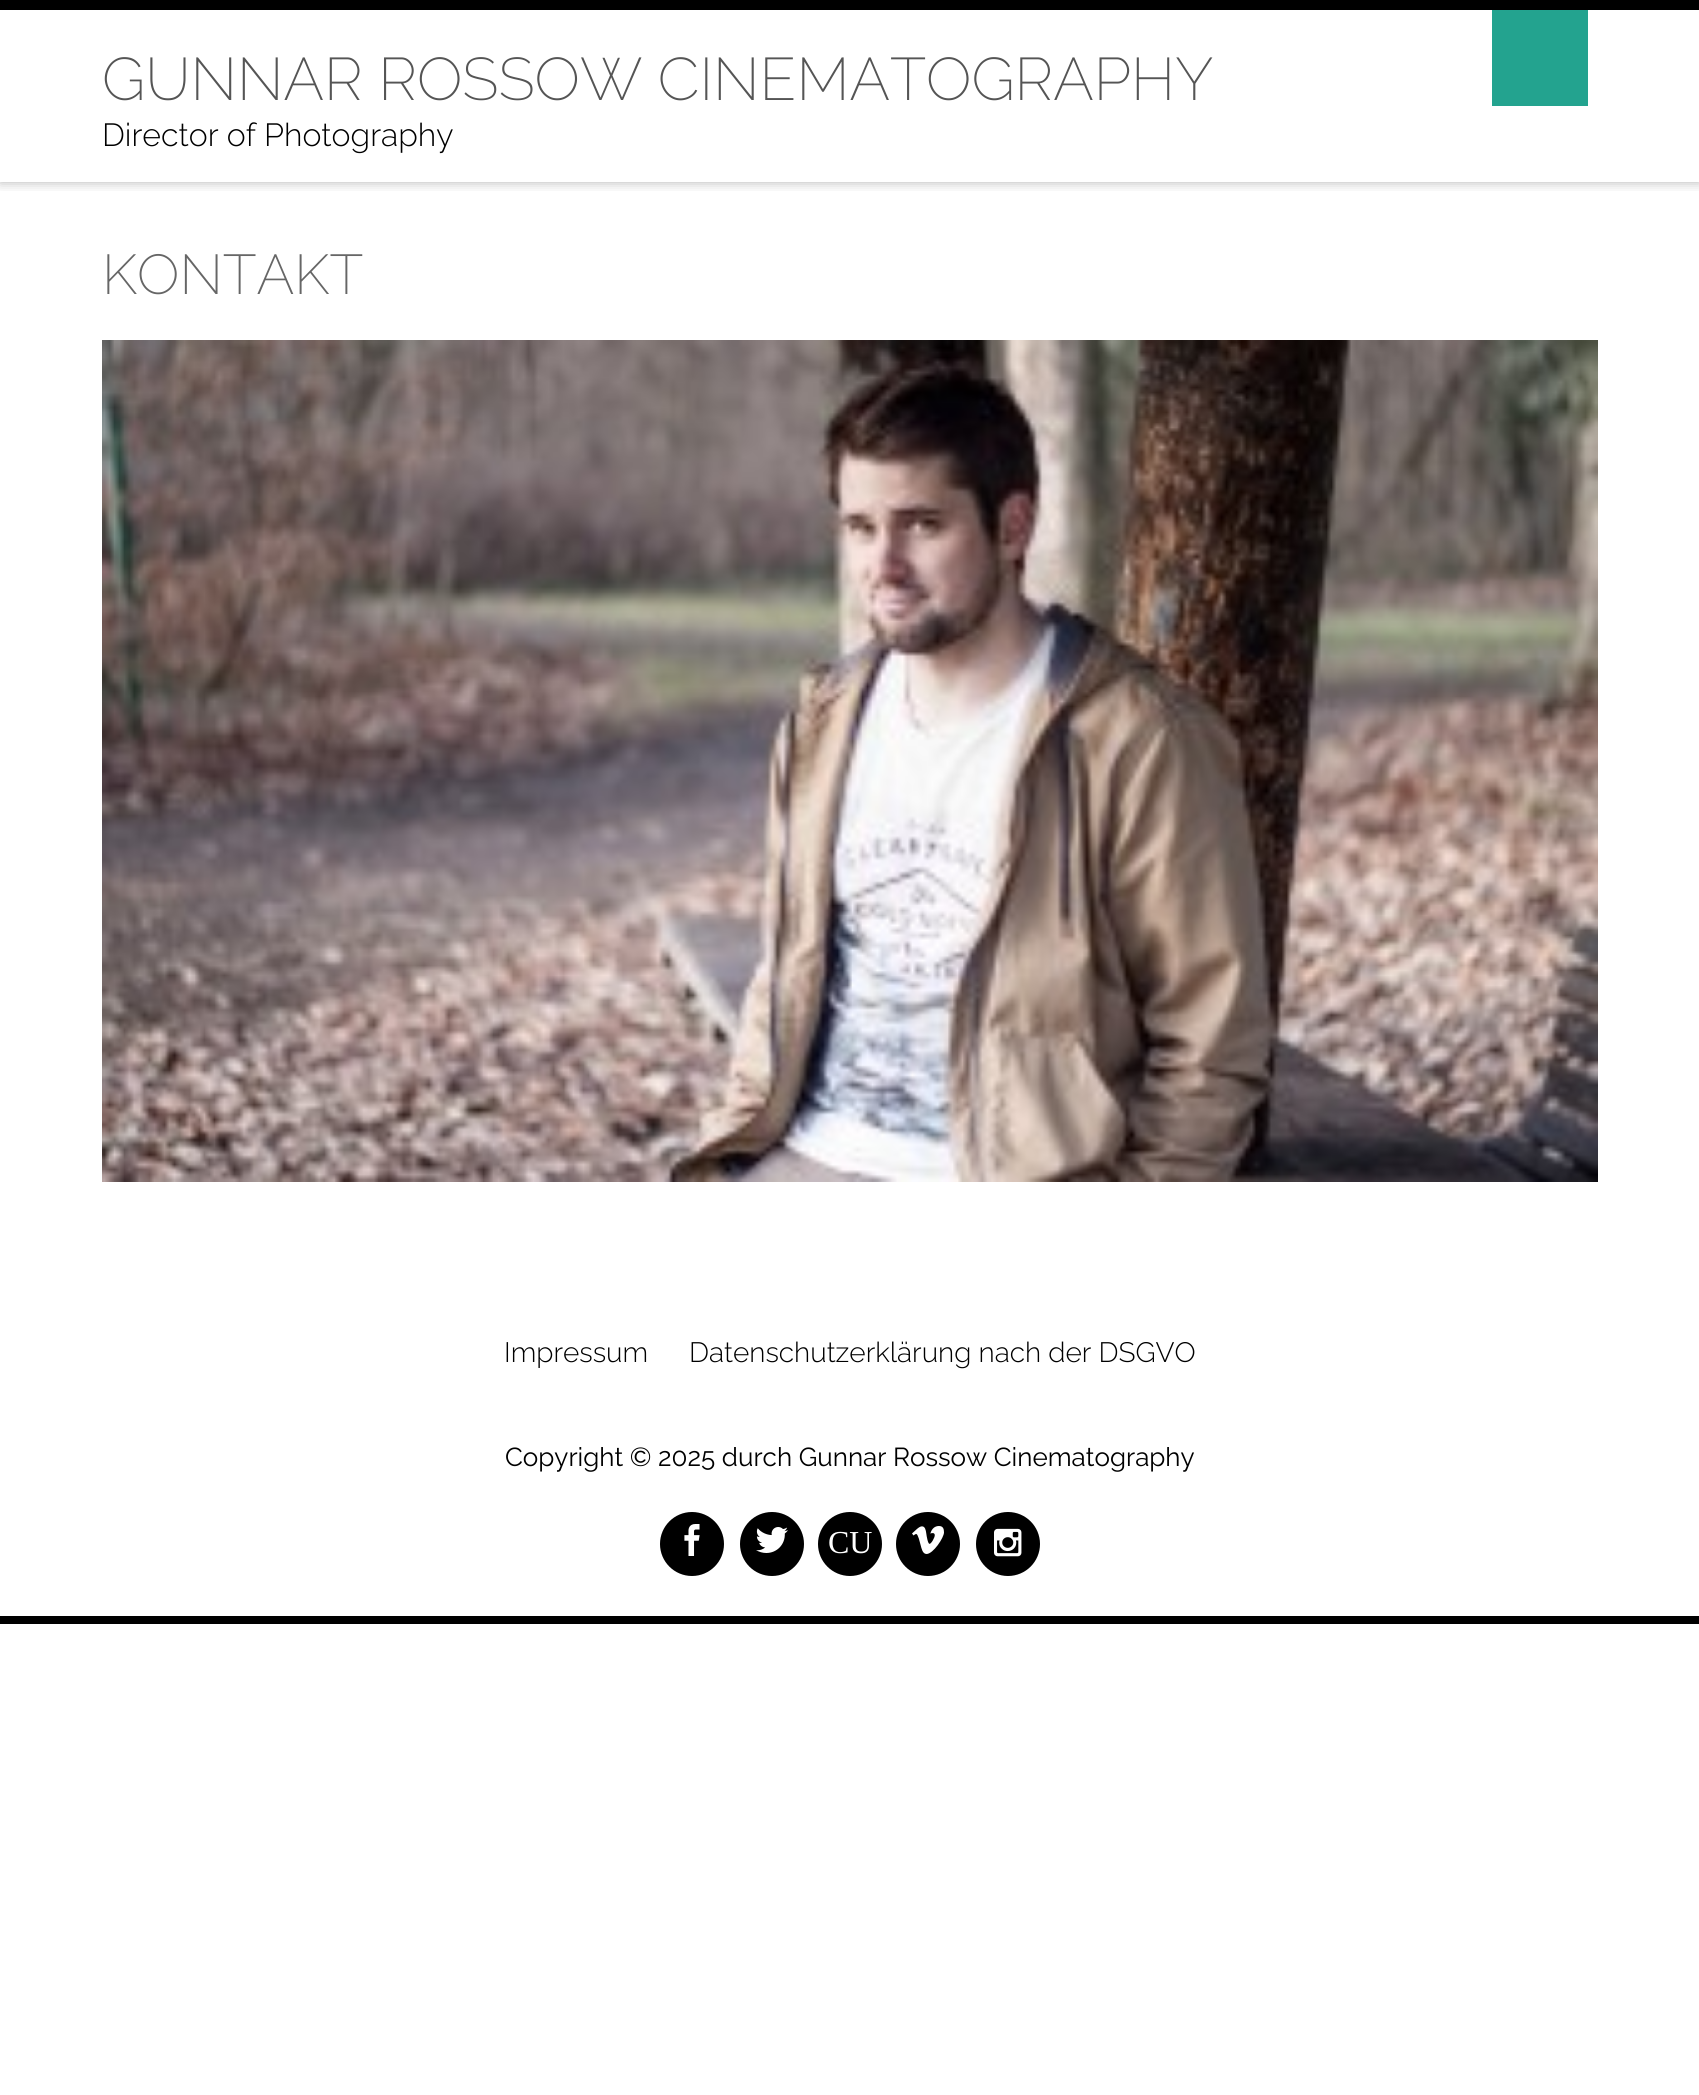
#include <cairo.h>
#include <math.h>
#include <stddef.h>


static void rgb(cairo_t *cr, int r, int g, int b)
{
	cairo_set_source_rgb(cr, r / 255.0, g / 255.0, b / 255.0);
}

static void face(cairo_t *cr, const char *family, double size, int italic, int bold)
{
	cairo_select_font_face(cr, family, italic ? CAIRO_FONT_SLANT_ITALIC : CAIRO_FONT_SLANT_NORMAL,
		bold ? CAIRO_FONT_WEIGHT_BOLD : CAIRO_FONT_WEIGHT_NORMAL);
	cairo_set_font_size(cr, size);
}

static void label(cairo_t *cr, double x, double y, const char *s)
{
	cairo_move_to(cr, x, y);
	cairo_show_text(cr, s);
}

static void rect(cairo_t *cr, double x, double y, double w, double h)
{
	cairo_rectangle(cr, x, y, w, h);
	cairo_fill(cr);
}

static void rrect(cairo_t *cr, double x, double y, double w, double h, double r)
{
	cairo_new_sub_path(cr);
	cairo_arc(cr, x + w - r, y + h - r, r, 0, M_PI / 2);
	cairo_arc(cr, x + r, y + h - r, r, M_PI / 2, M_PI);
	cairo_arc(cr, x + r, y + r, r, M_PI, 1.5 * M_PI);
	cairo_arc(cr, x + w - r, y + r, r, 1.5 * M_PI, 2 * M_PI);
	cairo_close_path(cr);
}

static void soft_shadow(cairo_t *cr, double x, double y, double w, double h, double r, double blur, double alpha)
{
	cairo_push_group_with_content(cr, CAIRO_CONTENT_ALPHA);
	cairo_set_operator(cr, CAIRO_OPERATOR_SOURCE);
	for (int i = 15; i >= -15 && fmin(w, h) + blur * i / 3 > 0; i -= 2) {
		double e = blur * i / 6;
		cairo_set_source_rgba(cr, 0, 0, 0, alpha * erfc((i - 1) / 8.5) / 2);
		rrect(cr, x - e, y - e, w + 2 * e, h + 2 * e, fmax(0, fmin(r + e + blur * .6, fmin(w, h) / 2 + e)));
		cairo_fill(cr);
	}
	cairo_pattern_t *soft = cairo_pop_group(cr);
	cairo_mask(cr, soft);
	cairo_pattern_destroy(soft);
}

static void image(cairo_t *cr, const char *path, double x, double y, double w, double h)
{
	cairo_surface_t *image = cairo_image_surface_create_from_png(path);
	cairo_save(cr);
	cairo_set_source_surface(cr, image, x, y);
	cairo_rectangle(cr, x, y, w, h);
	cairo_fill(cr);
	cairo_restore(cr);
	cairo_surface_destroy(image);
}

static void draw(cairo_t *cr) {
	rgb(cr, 255, 255, 255);
	cairo_paint(cr);
	cairo_save(cr);
	cairo_rectangle(cr, 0, 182, 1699, 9);
	cairo_clip(cr);
	rgb(cr, 0, 0, 0);
	soft_shadow(cr, 0, 0, 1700, 182, 0, 6, 0.3);
	cairo_restore(cr);
	rgb(cr, 0, 0, 0);
	rect(cr, 0, 0, 1699, 10);
	face(cr, "Raleway ExtraLight", 60, 0, 0);
	rgb(cr, 85, 85, 85);
	label(cr, 102, 100, "GUNNAR ROSSOW CINEMATOGRAPHY");
	face(cr, "Raleway Light", 32, 0, 0);
	rgb(cr, 0, 0, 0);
	label(cr, 102, 146, "Director of Photography");
	rgb(cr, 35, 163, 143);
	rect(cr, 1492, 10, 96, 96);
	face(cr, "Raleway ExtraLight", 56, 0, 0);
	rgb(cr, 102, 102, 102);
	label(cr, 102, 294, "KONTAKT");
	image(cr, "image0.png", 102, 340, 1496, 842);
	face(cr, "Raleway Light", 28, 0, 0);
	rgb(cr, 0, 0, 0);
	label(cr, 504, 1362, "Impressum");
	label(cr, 689, 1362, "Datenschutzerklärung nach der DSGVO");
	face(cr, "Raleway", 26, 0, 0);
	label(cr, 505, 1466, "Copyright © 2025 durch Gunnar Rossow Cinematography");
	cairo_new_path(cr);
	cairo_arc(cr, 692, 1544, 32, 0, 2 * M_PI);
	cairo_fill(cr);
	image(cr, "image1.png", 684, 1524, 16, 32);
	cairo_arc(cr, 772, 1544, 32, 0, 2 * M_PI);
	cairo_fill(cr);
	image(cr, "image2.png", 756, 1527, 32, 26);
	cairo_arc(cr, 850, 1544, 32, 0, 2 * M_PI);
	cairo_fill(cr);
	face(cr, "Liberation Serif", 32, 0, 0);
	rgb(cr, 255, 255, 255);
	label(cr, 828, 1553, "CU");
	rgb(cr, 0, 0, 0);
	cairo_new_path(cr);
	cairo_arc(cr, 928, 1544, 32, 0, 2 * M_PI);
	cairo_fill(cr);
	image(cr, "image3.png", 912, 1526, 32, 28);
	cairo_arc(cr, 1008, 1544, 32, 0, 2 * M_PI);
	cairo_fill(cr);
	image(cr, "image4.png", 994, 1528, 28, 29);
	rect(cr, 0, 1616, 1699, 8);
}

int main(void) {
	cairo_surface_t *surface = cairo_image_surface_create(CAIRO_FORMAT_RGB24, 1699, 2095);
	cairo_t *cr = cairo_create(surface);
	cairo_font_options_t *options = cairo_font_options_create();
	cairo_font_options_set_hint_metrics(options, CAIRO_HINT_METRICS_OFF);
	cairo_font_options_set_hint_style(options, CAIRO_HINT_STYLE_NONE);
	cairo_set_font_options(cr, options);
	cairo_set_miter_limit(cr, 4);
	draw(cr);
	cairo_surface_write_to_png(surface, "render.png");
	cairo_font_options_destroy(options);
	cairo_destroy(cr);
	cairo_surface_destroy(surface);
	return 0;
}
